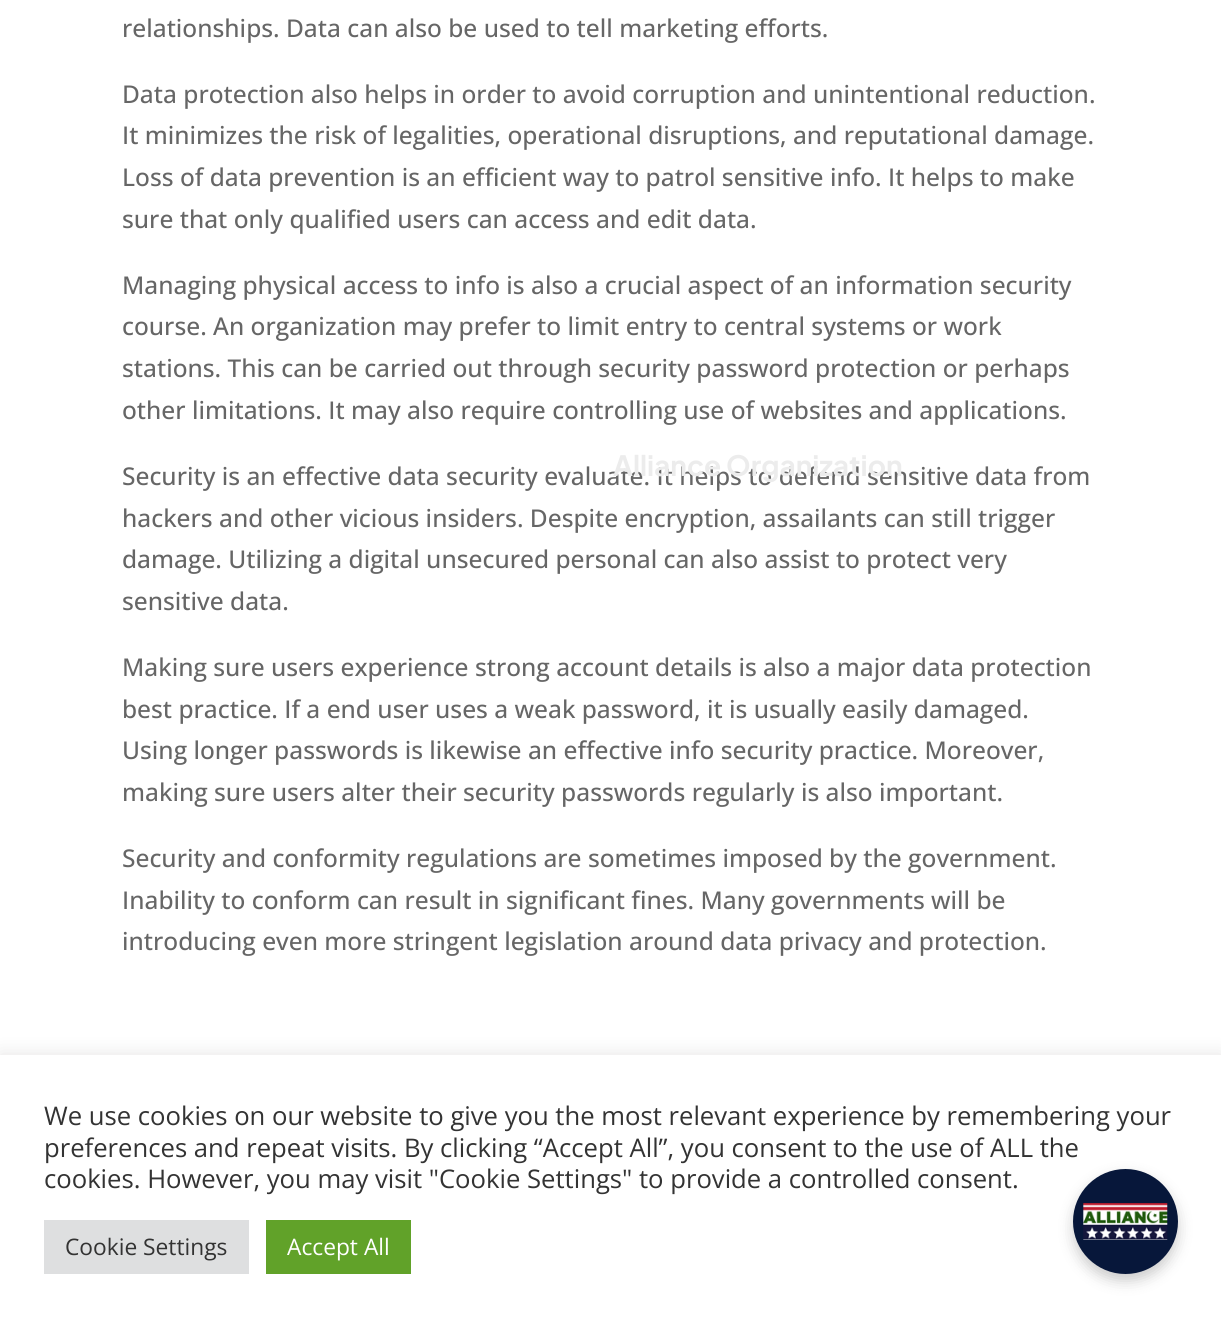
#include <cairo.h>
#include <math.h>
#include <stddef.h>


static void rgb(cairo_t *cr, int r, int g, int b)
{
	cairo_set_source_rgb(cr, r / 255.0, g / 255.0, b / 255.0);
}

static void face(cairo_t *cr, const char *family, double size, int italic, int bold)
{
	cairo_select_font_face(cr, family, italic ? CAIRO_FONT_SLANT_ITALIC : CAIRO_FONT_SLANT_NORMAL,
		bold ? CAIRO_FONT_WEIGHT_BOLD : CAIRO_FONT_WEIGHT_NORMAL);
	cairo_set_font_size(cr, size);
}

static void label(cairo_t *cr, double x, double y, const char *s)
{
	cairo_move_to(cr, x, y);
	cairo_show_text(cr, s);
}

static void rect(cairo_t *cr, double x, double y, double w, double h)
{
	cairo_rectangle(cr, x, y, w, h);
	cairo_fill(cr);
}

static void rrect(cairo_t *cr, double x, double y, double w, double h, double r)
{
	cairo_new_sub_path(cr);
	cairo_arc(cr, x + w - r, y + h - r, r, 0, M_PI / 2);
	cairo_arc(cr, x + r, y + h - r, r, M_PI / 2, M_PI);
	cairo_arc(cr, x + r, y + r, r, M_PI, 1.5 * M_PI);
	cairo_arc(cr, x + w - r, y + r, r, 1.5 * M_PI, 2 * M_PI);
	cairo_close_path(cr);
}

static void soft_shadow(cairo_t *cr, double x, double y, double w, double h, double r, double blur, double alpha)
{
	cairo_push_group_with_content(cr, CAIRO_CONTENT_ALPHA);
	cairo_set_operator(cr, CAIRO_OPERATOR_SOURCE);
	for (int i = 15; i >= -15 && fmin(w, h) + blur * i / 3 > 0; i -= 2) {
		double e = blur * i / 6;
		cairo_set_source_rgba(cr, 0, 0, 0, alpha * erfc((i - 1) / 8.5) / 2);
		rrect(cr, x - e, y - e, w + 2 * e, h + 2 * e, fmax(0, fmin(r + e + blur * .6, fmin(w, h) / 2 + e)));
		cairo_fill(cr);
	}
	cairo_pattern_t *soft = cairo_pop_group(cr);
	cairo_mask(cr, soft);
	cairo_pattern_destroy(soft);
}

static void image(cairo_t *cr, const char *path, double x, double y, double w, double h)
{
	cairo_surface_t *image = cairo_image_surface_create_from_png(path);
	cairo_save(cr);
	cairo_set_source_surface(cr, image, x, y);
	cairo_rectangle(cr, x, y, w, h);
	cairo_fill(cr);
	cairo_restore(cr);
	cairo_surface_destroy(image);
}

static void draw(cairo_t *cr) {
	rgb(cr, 255, 255, 255);
	cairo_paint(cr);
	face(cr, "Open Sans Medium", 24.5, 0, 0);
	rgb(cr, 102, 102, 102);
	label(cr, 122, 37, "relationships. Data can also be used to tell marketing efforts.");
	label(cr, 122, 103, "Data protection also helps in order to avoid corruption and unintentional reduction.");
	label(cr, 122, 144, "It minimizes the risk of legalities, operational disruptions, and reputational damage.");
	label(cr, 122, 186, "Loss of data prevention is an efficient way to patrol sensitive info. It helps to make");
	label(cr, 122, 228, "sure that only qualified users can access and edit data.");
	label(cr, 122, 294, "Managing physical access to info is also a crucial aspect of an information security");
	label(cr, 122, 335, "course. An organization may prefer to limit entry to central systems or work");
	label(cr, 122, 377, "stations. This can be carried out through security password protection or perhaps");
	label(cr, 122, 419, "other limitations. It may also require controlling use of websites and applications.");
	label(cr, 122, 485, "Security is an effective data security evaluate. It helps to defend sensitive data from");
	label(cr, 122, 527, "hackers and other vicious insiders. Despite encryption, assailants can still trigger");
	label(cr, 122, 568, "damage. Utilizing a digital unsecured personal can also assist to protect very");
	label(cr, 122, 610, "sensitive data.");
	label(cr, 122, 676, "Making sure users experience strong account details is also a major data protection");
	label(cr, 122, 718, "best practice. If a end user uses a weak password, it is usually easily damaged.");
	label(cr, 122, 759, "Using longer passwords is likewise an effective info security practice. Moreover,");
	label(cr, 122, 801, "making sure users alter their security passwords regularly is also important.");
	label(cr, 122, 867, "Security and conformity regulations are sometimes imposed by the government.");
	label(cr, 122, 909, "Inability to conform can result in significant fines. Many governments will be");
	label(cr, 122, 950, "introducing even more stringent legislation around data privacy and protection.");
	face(cr, "Plus Jakarta Sans", 28, 0, 1);
	rgb(cr, 236, 236, 236);
	label(cr, 613, 476, "Alliance Organization");
	rgb(cr, 172, 171, 171);
	soft_shadow(cr, 0, 1054, 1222, 271, 0, 9, 0.3);
	rgb(cr, 255, 255, 255);
	rect(cr, 0, 1055, 1221, 271);
	face(cr, "Open Sans", 25.65, 0, 0);
	rgb(cr, 51, 51, 51);
	label(cr, 44, 1125, "We use cookies on our website to give you the most relevant experience by remembering your");
	label(cr, 44, 1157, "preferences and repeat visits. By clicking “Accept All”, you consent to the use of ALL the");
	label(cr, 44, 1188, "cookies. However, you may visit \"Cookie Settings\" to provide a controlled consent.");
	rgb(cr, 222, 223, 224);
	rect(cr, 44, 1220, 205, 54);
	face(cr, "Open Sans", 22.75, 0, 0);
	rgb(cr, 51, 51, 51);
	label(cr, 65, 1255, "Cookie Settings");
	rgb(cr, 97, 162, 41);
	rect(cr, 266, 1220, 145, 54);
	rgb(cr, 255, 255, 255);
	label(cr, 287, 1255, "Accept All");
	rgb(cr, 0, 0, 0);
	soft_shadow(cr, 1073, 1176, 105, 105, 52.5, 7, 0.2);
	rgb(cr, 7, 23, 58);
	cairo_arc(cr, 1125.5, 1221.5, 52.5, 0, 2 * M_PI);
	cairo_fill(cr);
	image(cr, "image0.png", 1083, 1203, 85, 37);
}

int main(void) {
	cairo_surface_t *surface = cairo_image_surface_create(CAIRO_FORMAT_RGB24, 1221, 1326);
	cairo_t *cr = cairo_create(surface);
	cairo_font_options_t *options = cairo_font_options_create();
	cairo_font_options_set_hint_metrics(options, CAIRO_HINT_METRICS_OFF);
	cairo_font_options_set_hint_style(options, CAIRO_HINT_STYLE_NONE);
	cairo_set_font_options(cr, options);
	cairo_set_miter_limit(cr, 4);
	draw(cr);
	cairo_surface_write_to_png(surface, "render.png");
	cairo_font_options_destroy(options);
	cairo_destroy(cr);
	cairo_surface_destroy(surface);
	return 0;
}
